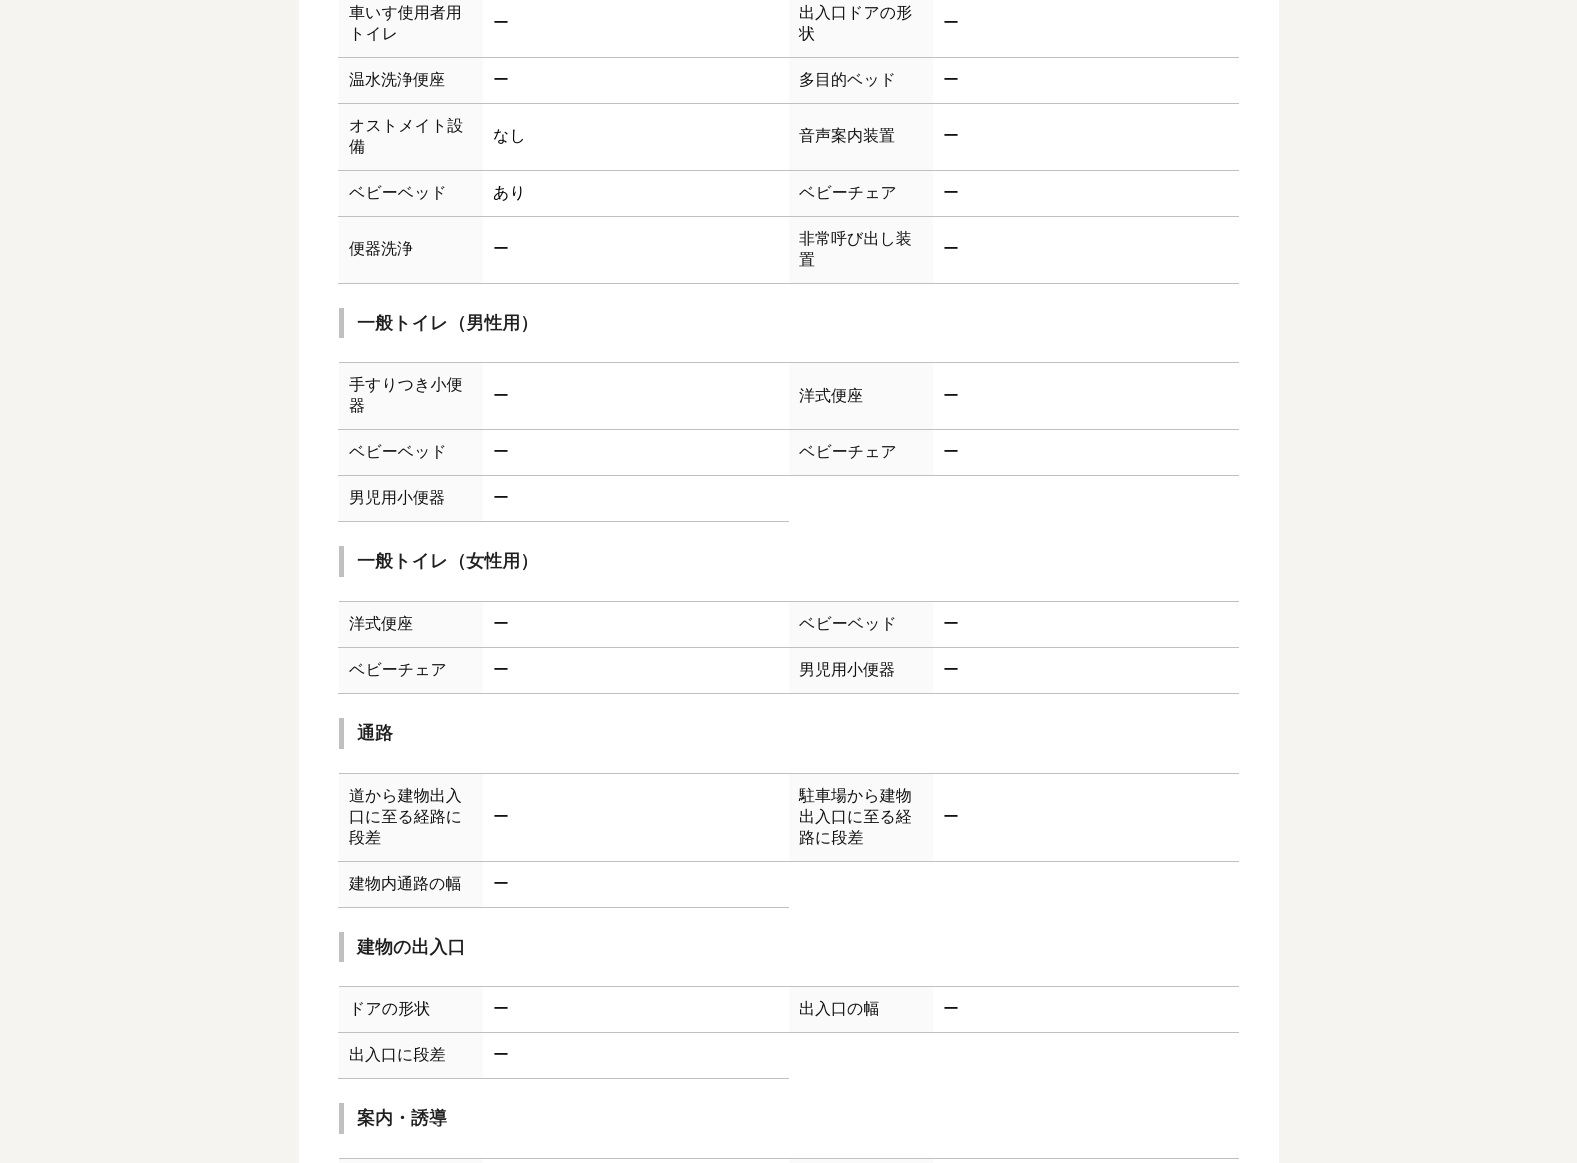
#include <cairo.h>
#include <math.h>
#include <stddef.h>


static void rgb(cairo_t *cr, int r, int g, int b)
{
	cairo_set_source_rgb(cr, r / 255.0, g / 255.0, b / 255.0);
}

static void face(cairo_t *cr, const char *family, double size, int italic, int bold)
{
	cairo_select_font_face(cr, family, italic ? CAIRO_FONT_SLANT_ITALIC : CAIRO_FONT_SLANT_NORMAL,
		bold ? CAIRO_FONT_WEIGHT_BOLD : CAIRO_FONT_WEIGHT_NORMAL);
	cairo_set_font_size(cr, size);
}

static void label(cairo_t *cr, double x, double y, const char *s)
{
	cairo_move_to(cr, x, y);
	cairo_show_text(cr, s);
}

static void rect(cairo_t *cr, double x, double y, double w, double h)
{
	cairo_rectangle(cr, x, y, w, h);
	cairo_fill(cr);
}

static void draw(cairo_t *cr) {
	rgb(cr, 245, 244, 240);
	cairo_paint(cr);
	rgb(cr, 255, 255, 255);
	rect(cr, 299, 0, 980, 1163);
	rgb(cr, 250, 250, 250);
	rect(cr, 339, 0, 144, 57);
	face(cr, "WenQuanYi Zen Hei Medium", 16, 0, 0);
	rgb(cr, 17, 17, 17);
	label(cr, 349, 18, "車いす使用者用");
	label(cr, 349, 39, "トイレ");
	rgb(cr, 0, 0, 0);
	label(cr, 493, 28, "ー");
	rgb(cr, 250, 250, 250);
	rect(cr, 789, 0, 144, 57);
	rgb(cr, 17, 17, 17);
	label(cr, 799, 18, "出入口ドアの形");
	label(cr, 799, 39, "状");
	rgb(cr, 192, 192, 192);
	rect(cr, 338, 57, 901, 1);
	rgb(cr, 0, 0, 0);
	label(cr, 943, 28, "ー");
	rgb(cr, 250, 250, 250);
	rect(cr, 339, 58, 144, 45);
	rgb(cr, 17, 17, 17);
	label(cr, 349, 85, "温水洗浄便座");
	rgb(cr, 0, 0, 0);
	label(cr, 493, 85, "ー");
	rgb(cr, 250, 250, 250);
	rect(cr, 789, 58, 144, 45);
	rgb(cr, 17, 17, 17);
	label(cr, 799, 85, "多目的ベッド");
	rgb(cr, 192, 192, 192);
	rect(cr, 338, 103, 901, 1);
	rgb(cr, 0, 0, 0);
	label(cr, 943, 85, "ー");
	rgb(cr, 250, 250, 250);
	rect(cr, 339, 104, 144, 66);
	rgb(cr, 17, 17, 17);
	label(cr, 349, 131, "オストメイト設");
	label(cr, 349, 152, "備");
	rgb(cr, 0, 0, 0);
	label(cr, 493, 141, "なし");
	rgb(cr, 250, 250, 250);
	rect(cr, 789, 104, 144, 66);
	rgb(cr, 17, 17, 17);
	label(cr, 799, 141, "音声案内装置");
	rgb(cr, 192, 192, 192);
	rect(cr, 338, 170, 901, 1);
	rgb(cr, 0, 0, 0);
	label(cr, 943, 141, "ー");
	rgb(cr, 250, 250, 250);
	rect(cr, 339, 171, 144, 45);
	rgb(cr, 17, 17, 17);
	label(cr, 349, 198, "ベビーベッド");
	rgb(cr, 0, 0, 0);
	label(cr, 493, 198, "あり");
	rgb(cr, 250, 250, 250);
	rect(cr, 789, 171, 144, 45);
	rgb(cr, 17, 17, 17);
	label(cr, 799, 198, "ベビーチェア");
	rgb(cr, 192, 192, 192);
	rect(cr, 338, 216, 901, 1);
	rgb(cr, 0, 0, 0);
	label(cr, 943, 198, "ー");
	rgb(cr, 250, 250, 250);
	rect(cr, 339, 217, 144, 66);
	rgb(cr, 17, 17, 17);
	label(cr, 349, 254, "便器洗浄");
	rgb(cr, 0, 0, 0);
	label(cr, 493, 254, "ー");
	rgb(cr, 250, 250, 250);
	rect(cr, 789, 217, 144, 66);
	rgb(cr, 17, 17, 17);
	label(cr, 799, 244, "非常呼び出し装");
	label(cr, 799, 265, "置");
	rgb(cr, 192, 192, 192);
	rect(cr, 338, 283, 901, 1);
	rgb(cr, 0, 0, 0);
	label(cr, 943, 254, "ー");
	rgb(cr, 192, 192, 192);
	rect(cr, 339, 308, 5, 30);
	face(cr, "WenQuanYi Zen Hei", 18, 0, 1);
	rgb(cr, 31, 31, 31);
	label(cr, 357, 329, "一般トイレ（男性用）");
	rgb(cr, 192, 192, 192);
	rect(cr, 339, 362, 900, 1);
	rgb(cr, 250, 250, 250);
	rect(cr, 339, 363, 144, 66);
	face(cr, "WenQuanYi Zen Hei Medium", 16, 0, 0);
	rgb(cr, 17, 17, 17);
	label(cr, 349, 390, "手すりつき小便");
	label(cr, 349, 411, "器");
	rgb(cr, 0, 0, 0);
	label(cr, 493, 401, "ー");
	rgb(cr, 250, 250, 250);
	rect(cr, 789, 363, 144, 66);
	rgb(cr, 17, 17, 17);
	label(cr, 799, 401, "洋式便座");
	rgb(cr, 192, 192, 192);
	rect(cr, 338, 429, 901, 1);
	rgb(cr, 0, 0, 0);
	label(cr, 943, 401, "ー");
	rgb(cr, 250, 250, 250);
	rect(cr, 339, 430, 144, 45);
	rgb(cr, 17, 17, 17);
	label(cr, 349, 457, "ベビーベッド");
	rgb(cr, 0, 0, 0);
	label(cr, 493, 457, "ー");
	rgb(cr, 250, 250, 250);
	rect(cr, 789, 430, 144, 45);
	rgb(cr, 17, 17, 17);
	label(cr, 799, 457, "ベビーチェア");
	rgb(cr, 192, 192, 192);
	rect(cr, 338, 475, 901, 1);
	rgb(cr, 0, 0, 0);
	label(cr, 943, 457, "ー");
	rgb(cr, 250, 250, 250);
	rect(cr, 339, 476, 144, 45);
	rgb(cr, 17, 17, 17);
	label(cr, 349, 503, "男児用小便器");
	rgb(cr, 192, 192, 192);
	rect(cr, 338, 521, 451, 1);
	rgb(cr, 0, 0, 0);
	label(cr, 493, 503, "ー");
	rgb(cr, 192, 192, 192);
	rect(cr, 339, 546, 5, 31);
	face(cr, "WenQuanYi Zen Hei", 18, 0, 1);
	rgb(cr, 31, 31, 31);
	label(cr, 357, 567, "一般トイレ（女性用）");
	rgb(cr, 192, 192, 192);
	rect(cr, 339, 601, 900, 1);
	rgb(cr, 250, 250, 250);
	rect(cr, 339, 602, 144, 45);
	face(cr, "WenQuanYi Zen Hei Medium", 16, 0, 0);
	rgb(cr, 17, 17, 17);
	label(cr, 349, 629, "洋式便座");
	rgb(cr, 0, 0, 0);
	label(cr, 493, 629, "ー");
	rgb(cr, 250, 250, 250);
	rect(cr, 789, 602, 144, 45);
	rgb(cr, 17, 17, 17);
	label(cr, 799, 629, "ベビーベッド");
	rgb(cr, 192, 192, 192);
	rect(cr, 338, 647, 901, 1);
	rgb(cr, 0, 0, 0);
	label(cr, 943, 629, "ー");
	rgb(cr, 250, 250, 250);
	rect(cr, 339, 648, 144, 45);
	rgb(cr, 17, 17, 17);
	label(cr, 349, 675, "ベビーチェア");
	rgb(cr, 0, 0, 0);
	label(cr, 493, 675, "ー");
	rgb(cr, 250, 250, 250);
	rect(cr, 789, 648, 144, 45);
	rgb(cr, 17, 17, 17);
	label(cr, 799, 675, "男児用小便器");
	rgb(cr, 192, 192, 192);
	rect(cr, 338, 693, 901, 1);
	rgb(cr, 0, 0, 0);
	label(cr, 943, 675, "ー");
	rgb(cr, 192, 192, 192);
	rect(cr, 339, 718, 5, 31);
	face(cr, "WenQuanYi Zen Hei", 18, 0, 1);
	rgb(cr, 31, 31, 31);
	label(cr, 357, 739, "通路");
	rgb(cr, 192, 192, 192);
	rect(cr, 339, 773, 900, 1);
	rgb(cr, 250, 250, 250);
	rect(cr, 339, 774, 144, 87);
	face(cr, "WenQuanYi Zen Hei Medium", 16, 0, 0);
	rgb(cr, 17, 17, 17);
	label(cr, 349, 801, "道から建物出入");
	label(cr, 349, 822, "口に至る経路に");
	label(cr, 349, 843, "段差");
	rgb(cr, 0, 0, 0);
	label(cr, 493, 822, "ー");
	rgb(cr, 250, 250, 250);
	rect(cr, 789, 774, 144, 87);
	rgb(cr, 17, 17, 17);
	label(cr, 799, 801, "駐車場から建物");
	label(cr, 799, 822, "出入口に至る経");
	label(cr, 799, 843, "路に段差");
	rgb(cr, 192, 192, 192);
	rect(cr, 338, 861, 901, 1);
	rgb(cr, 0, 0, 0);
	label(cr, 943, 822, "ー");
	rgb(cr, 250, 250, 250);
	rect(cr, 339, 862, 144, 45);
	rgb(cr, 17, 17, 17);
	label(cr, 349, 889, "建物内通路の幅");
	rgb(cr, 192, 192, 192);
	rect(cr, 338, 907, 451, 1);
	rgb(cr, 0, 0, 0);
	label(cr, 493, 889, "ー");
	rgb(cr, 192, 192, 192);
	rect(cr, 339, 932, 5, 30);
	face(cr, "WenQuanYi Zen Hei", 18, 0, 1);
	rgb(cr, 31, 31, 31);
	label(cr, 357, 953, "建物の出入口");
	rgb(cr, 192, 192, 192);
	rect(cr, 339, 986, 900, 1);
	rgb(cr, 250, 250, 250);
	rect(cr, 339, 987, 144, 45);
	face(cr, "WenQuanYi Zen Hei Medium", 16, 0, 0);
	rgb(cr, 17, 17, 17);
	label(cr, 349, 1014, "ドアの形状");
	rgb(cr, 0, 0, 0);
	label(cr, 493, 1014, "ー");
	rgb(cr, 250, 250, 250);
	rect(cr, 789, 987, 144, 45);
	rgb(cr, 17, 17, 17);
	label(cr, 799, 1014, "出入口の幅");
	rgb(cr, 192, 192, 192);
	rect(cr, 338, 1032, 901, 1);
	rgb(cr, 0, 0, 0);
	label(cr, 943, 1014, "ー");
	rgb(cr, 250, 250, 250);
	rect(cr, 339, 1033, 144, 45);
	rgb(cr, 17, 17, 17);
	label(cr, 349, 1060, "出入口に段差");
	rgb(cr, 192, 192, 192);
	rect(cr, 338, 1078, 451, 1);
	rgb(cr, 0, 0, 0);
	label(cr, 493, 1060, "ー");
	rgb(cr, 192, 192, 192);
	rect(cr, 339, 1103, 5, 31);
	face(cr, "WenQuanYi Zen Hei", 18, 0, 1);
	rgb(cr, 31, 31, 31);
	label(cr, 357, 1124, "案内・誘導");
	rgb(cr, 192, 192, 192);
	rect(cr, 339, 1158, 900, 1);
	rgb(cr, 250, 250, 250);
	rect(cr, 339, 1159, 144, 4);
	rect(cr, 789, 1159, 144, 4);
}

int main(void) {
	cairo_surface_t *surface = cairo_image_surface_create(CAIRO_FORMAT_RGB24, 1577, 1163);
	cairo_t *cr = cairo_create(surface);
	cairo_font_options_t *options = cairo_font_options_create();
	cairo_font_options_set_hint_metrics(options, CAIRO_HINT_METRICS_OFF);
	cairo_font_options_set_hint_style(options, CAIRO_HINT_STYLE_NONE);
	cairo_set_font_options(cr, options);
	cairo_set_miter_limit(cr, 4);
	draw(cr);
	cairo_surface_write_to_png(surface, "render.png");
	cairo_font_options_destroy(options);
	cairo_destroy(cr);
	cairo_surface_destroy(surface);
	return 0;
}
